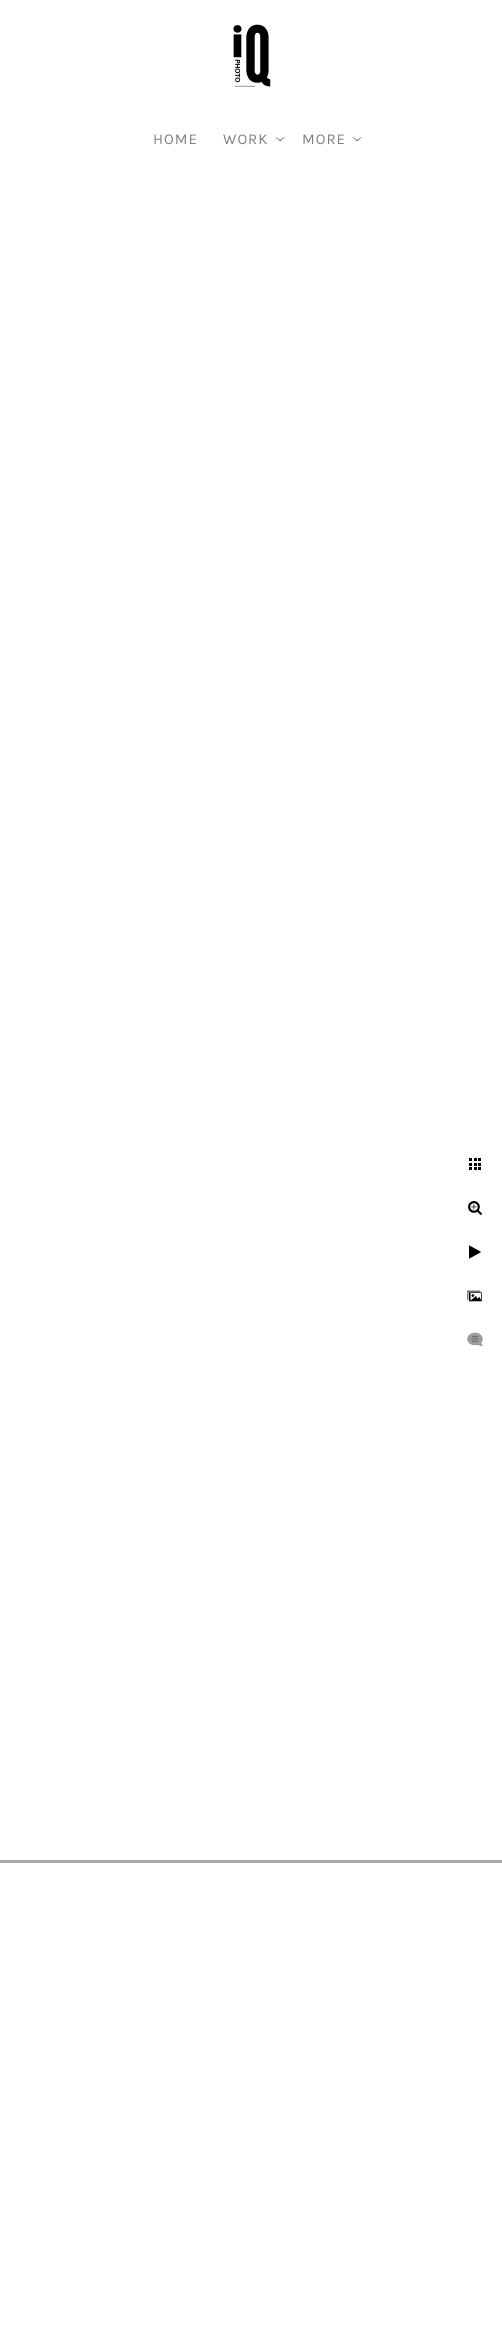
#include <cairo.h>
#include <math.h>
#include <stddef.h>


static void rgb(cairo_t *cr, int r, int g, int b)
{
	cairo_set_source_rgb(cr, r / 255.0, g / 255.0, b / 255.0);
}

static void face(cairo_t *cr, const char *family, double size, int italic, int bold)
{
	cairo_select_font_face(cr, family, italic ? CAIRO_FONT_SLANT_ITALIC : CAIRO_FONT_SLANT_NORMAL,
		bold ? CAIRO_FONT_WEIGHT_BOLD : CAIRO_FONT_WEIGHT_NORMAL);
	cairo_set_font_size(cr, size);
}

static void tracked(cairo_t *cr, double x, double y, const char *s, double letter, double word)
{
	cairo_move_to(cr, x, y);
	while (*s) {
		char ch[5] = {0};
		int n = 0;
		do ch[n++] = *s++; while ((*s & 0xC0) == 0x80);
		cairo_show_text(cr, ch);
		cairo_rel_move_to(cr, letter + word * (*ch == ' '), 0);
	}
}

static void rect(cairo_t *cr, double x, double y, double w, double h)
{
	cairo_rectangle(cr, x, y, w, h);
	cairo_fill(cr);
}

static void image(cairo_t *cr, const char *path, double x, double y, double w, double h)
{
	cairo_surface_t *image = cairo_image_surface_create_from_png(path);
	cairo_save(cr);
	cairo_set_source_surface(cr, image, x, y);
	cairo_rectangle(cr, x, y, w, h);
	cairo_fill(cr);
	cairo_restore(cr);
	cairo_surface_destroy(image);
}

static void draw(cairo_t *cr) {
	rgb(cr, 255, 255, 255);
	cairo_paint(cr);
	image(cr, "image0.png", 233, 24, 38, 63);
	face(cr, "Karla", 15, 0, 0);
	rgb(cr, 128, 128, 128);
	tracked(cr, 153, 144, "HOME", 1, 0);
	tracked(cr, 223, 144, "WORK", 1, 0);
	image(cr, "image1.png", 275, 136, 10, 6);
	tracked(cr, 302, 144, "MORE", 1, 0);
	image(cr, "image1.png", 352, 136, 10, 6);
	image(cr, "image2.png", 469, 1158, 12, 12);
	image(cr, "image3.png", 468, 1201, 14, 14);
	image(cr, "image4.png", 469, 1245, 12, 14);
	image(cr, "image5.png", 467, 1290, 15, 12);
	image(cr, "image6.png", 467, 1332, 16, 15);
	rgb(cr, 169, 169, 169);
	rect(cr, 0, 1860, 502, 3);
}

int main(void) {
	cairo_surface_t *surface = cairo_image_surface_create(CAIRO_FORMAT_RGB24, 502, 2325);
	cairo_t *cr = cairo_create(surface);
	cairo_font_options_t *options = cairo_font_options_create();
	cairo_font_options_set_hint_metrics(options, CAIRO_HINT_METRICS_OFF);
	cairo_font_options_set_hint_style(options, CAIRO_HINT_STYLE_NONE);
	cairo_set_font_options(cr, options);
	cairo_set_miter_limit(cr, 4);
	draw(cr);
	cairo_surface_write_to_png(surface, "render.png");
	cairo_font_options_destroy(options);
	cairo_destroy(cr);
	cairo_surface_destroy(surface);
	return 0;
}
